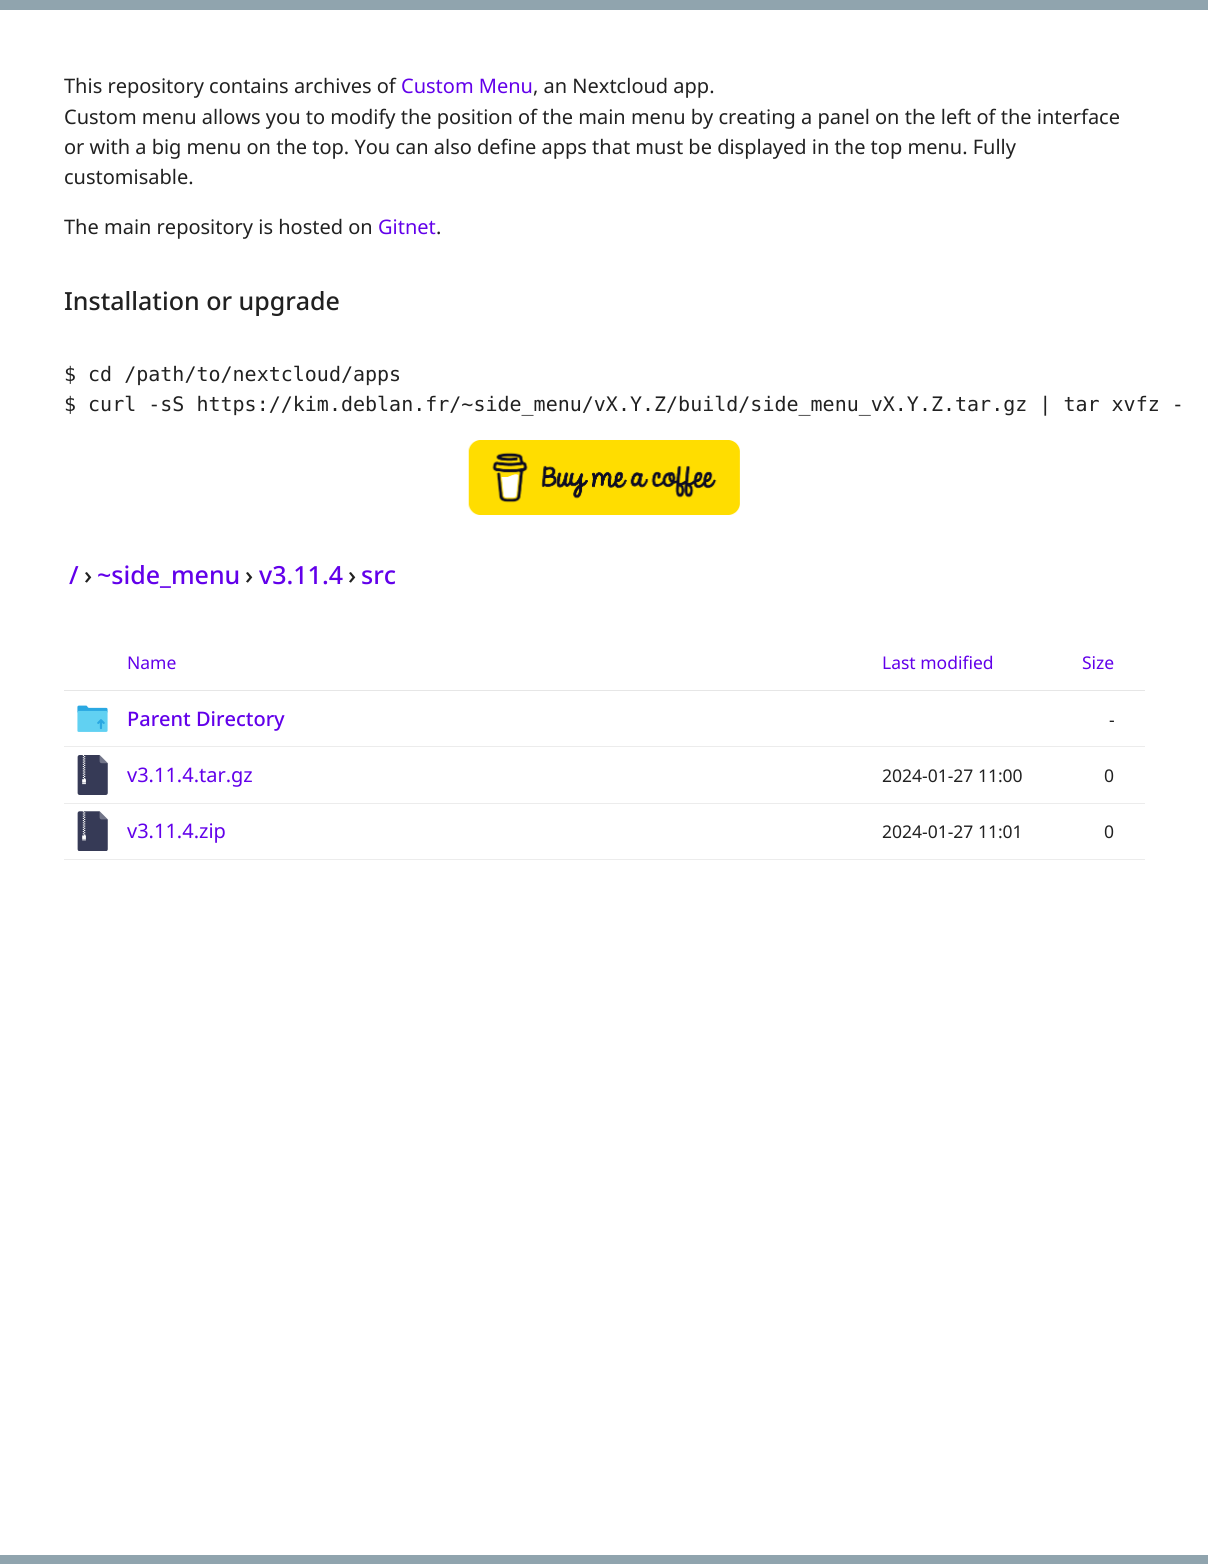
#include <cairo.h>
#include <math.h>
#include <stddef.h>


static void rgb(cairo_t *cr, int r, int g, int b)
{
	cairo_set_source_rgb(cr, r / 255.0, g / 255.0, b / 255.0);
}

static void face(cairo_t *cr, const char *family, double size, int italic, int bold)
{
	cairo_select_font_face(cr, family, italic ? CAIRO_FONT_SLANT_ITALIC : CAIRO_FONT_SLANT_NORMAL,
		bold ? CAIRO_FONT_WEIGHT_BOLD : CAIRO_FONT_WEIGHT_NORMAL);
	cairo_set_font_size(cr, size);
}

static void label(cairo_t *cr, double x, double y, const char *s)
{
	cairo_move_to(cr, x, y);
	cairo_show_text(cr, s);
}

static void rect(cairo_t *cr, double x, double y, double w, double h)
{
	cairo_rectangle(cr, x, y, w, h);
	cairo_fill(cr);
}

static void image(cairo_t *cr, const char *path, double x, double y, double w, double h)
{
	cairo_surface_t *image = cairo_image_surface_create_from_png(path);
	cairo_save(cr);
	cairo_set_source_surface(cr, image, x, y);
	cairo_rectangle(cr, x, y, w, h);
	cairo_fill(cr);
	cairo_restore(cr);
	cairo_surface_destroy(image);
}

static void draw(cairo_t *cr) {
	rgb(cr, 255, 255, 255);
	cairo_paint(cr);
	rgb(cr, 144, 164, 174);
	rect(cr, 0, 0, 1208, 10);
	rect(cr, 0, 1555, 1208, 9);
	face(cr, "Noto Sans", 20, 0, 0);
	rgb(cr, 33, 33, 33);
	label(cr, 64, 93, "This repository contains archives of");
	rgb(cr, 98, 0, 234);
	label(cr, 401, 93, "Custom Menu");
	rgb(cr, 33, 33, 33);
	label(cr, 533, 93, ", an Nextcloud app.");
	label(cr, 64, 124, "Custom menu allows you to modify the position of the main menu by creating a panel on the left of the interface");
	label(cr, 64, 154, "or with a big menu on the top. You can also define apps that must be displayed in the top menu. Fully");
	label(cr, 64, 184, "customisable.");
	label(cr, 64, 234, "The main repository is hosted on");
	rgb(cr, 98, 0, 234);
	label(cr, 378, 234, "Gitnet");
	rgb(cr, 33, 33, 33);
	label(cr, 436, 234, ".");
	face(cr, "Noto Sans Medium", 25, 0, 0);
	label(cr, 64, 310, "Installation or upgrade");
	face(cr, "DejaVu Sans Mono", 20, 0, 0);
	label(cr, 64, 381, "$ cd /path/to/nextcloud/apps");
	label(cr, 64, 411, "$ curl -sS https://kim.deblan.fr/~side_menu/vX.Y.Z/build/side_menu_vX.Y.Z.tar.gz | tar xvfz -");
	image(cr, "image0.png", 468, 440, 272, 75);
	face(cr, "Noto Sans Medium", 25, 0, 0);
	rgb(cr, 98, 0, 234);
	label(cr, 69, 584, "/");
	rgb(cr, 33, 33, 33);
	label(cr, 84, 584, "›");
	rgb(cr, 98, 0, 234);
	label(cr, 97, 584, "~side_menu");
	rgb(cr, 33, 33, 33);
	label(cr, 245, 584, "›");
	rgb(cr, 98, 0, 234);
	label(cr, 259, 584, "v3.11.4");
	rgb(cr, 33, 33, 33);
	label(cr, 348, 584, "›");
	rgb(cr, 98, 0, 234);
	label(cr, 361, 584, "src");
	rgb(cr, 230, 230, 230);
	rect(cr, 64, 690, 1081, 1);
	face(cr, "Noto Sans", 17.5, 0, 0);
	rgb(cr, 98, 0, 234);
	label(cr, 127, 669, "Name");
	label(cr, 882, 669, "Last modified");
	label(cr, 1082, 669, "Size");
	rgb(cr, 236, 236, 236);
	rect(cr, 64, 746, 1081, 1);
	image(cr, "image1.png", 77, 705, 31, 27);
	face(cr, "Noto Sans Medium", 20, 0, 0);
	rgb(cr, 98, 0, 234);
	label(cr, 127, 726, "Parent Directory");
	face(cr, "Noto Sans", 17.5, 0, 0);
	rgb(cr, 33, 33, 33);
	label(cr, 1109, 726, "-");
	rgb(cr, 236, 236, 236);
	rect(cr, 64, 803, 1081, 1);
	image(cr, "image2.png", 77, 755, 31, 40);
	face(cr, "Noto Sans", 20, 0, 0);
	rgb(cr, 98, 0, 234);
	label(cr, 127, 782, "v3.11.4.tar.gz");
	face(cr, "Noto Sans", 17.5, 0, 0);
	rgb(cr, 33, 33, 33);
	label(cr, 882, 782, "2024-01-27 11:00");
	label(cr, 1104, 782, "0");
	rgb(cr, 236, 236, 236);
	rect(cr, 64, 859, 1081, 1);
	image(cr, "image3.png", 77, 811, 31, 40);
	face(cr, "Noto Sans", 20, 0, 0);
	rgb(cr, 98, 0, 234);
	label(cr, 127, 838, "v3.11.4.zip");
	face(cr, "Noto Sans", 17.5, 0, 0);
	rgb(cr, 33, 33, 33);
	label(cr, 882, 838, "2024-01-27 11:01");
	label(cr, 1104, 838, "0");
}

int main(void) {
	cairo_surface_t *surface = cairo_image_surface_create(CAIRO_FORMAT_RGB24, 1208, 1564);
	cairo_t *cr = cairo_create(surface);
	cairo_font_options_t *options = cairo_font_options_create();
	cairo_font_options_set_hint_metrics(options, CAIRO_HINT_METRICS_OFF);
	cairo_font_options_set_hint_style(options, CAIRO_HINT_STYLE_NONE);
	cairo_set_font_options(cr, options);
	cairo_set_miter_limit(cr, 4);
	draw(cr);
	cairo_surface_write_to_png(surface, "render.png");
	cairo_font_options_destroy(options);
	cairo_destroy(cr);
	cairo_surface_destroy(surface);
	return 0;
}
